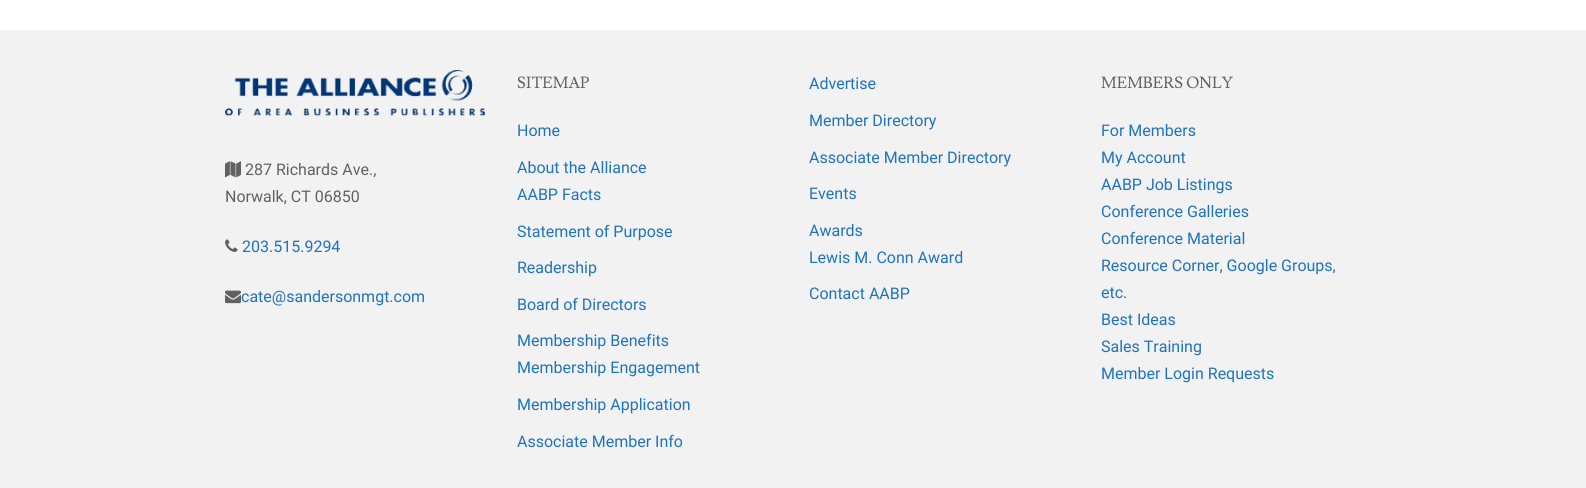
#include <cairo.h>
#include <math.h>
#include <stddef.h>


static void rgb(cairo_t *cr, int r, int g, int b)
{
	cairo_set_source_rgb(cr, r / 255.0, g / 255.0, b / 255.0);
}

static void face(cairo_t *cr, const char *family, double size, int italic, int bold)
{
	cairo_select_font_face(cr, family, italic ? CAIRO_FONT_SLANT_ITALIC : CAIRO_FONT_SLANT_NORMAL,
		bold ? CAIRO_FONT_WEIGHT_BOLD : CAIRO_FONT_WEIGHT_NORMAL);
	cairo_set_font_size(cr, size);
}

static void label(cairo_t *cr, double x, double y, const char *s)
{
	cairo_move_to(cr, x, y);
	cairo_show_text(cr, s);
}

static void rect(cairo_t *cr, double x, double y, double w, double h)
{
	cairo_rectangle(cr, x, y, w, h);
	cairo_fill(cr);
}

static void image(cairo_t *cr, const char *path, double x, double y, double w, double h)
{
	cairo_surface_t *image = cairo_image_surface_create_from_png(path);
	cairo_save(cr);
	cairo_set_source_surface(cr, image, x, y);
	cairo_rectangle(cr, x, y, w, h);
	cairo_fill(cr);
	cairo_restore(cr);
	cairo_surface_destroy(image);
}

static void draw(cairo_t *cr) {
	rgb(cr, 255, 255, 255);
	cairo_paint(cr);
	rgb(cr, 242, 242, 242);
	rect(cr, 0, 30, 1586, 458);
	image(cr, "image0.png", 225, 70, 260, 46);
	image(cr, "image1.png", 225, 161, 16, 17);
	face(cr, "Roboto", 16, 0, 0);
	rgb(cr, 97, 97, 97);
	label(cr, 245, 175, "287 Richards Ave.,");
	label(cr, 225, 202, "Norwalk, CT 06850");
	image(cr, "image2.png", 225, 239, 13, 13);
	rgb(cr, 30, 115, 190);
	label(cr, 242, 252, "203.515.9294");
	image(cr, "image3.png", 225, 290, 16, 14);
	label(cr, 241, 302, "cate@sandersonmgt.com");
	face(cr, "Lusitana", 16, 0, 0);
	rgb(cr, 97, 97, 97);
	label(cr, 517, 88, "SITEMAP");
	face(cr, "Roboto", 16, 0, 0);
	rgb(cr, 30, 115, 190);
	label(cr, 517, 136, "Home");
	label(cr, 517, 173, "About the Alliance");
	label(cr, 517, 200, "AABP Facts");
	label(cr, 517, 237, "Statement of Purpose");
	label(cr, 517, 273, "Readership");
	label(cr, 517, 310, "Board of Directors");
	label(cr, 517, 346, "Membership Benefits");
	label(cr, 517, 373, "Membership Engagement");
	label(cr, 517, 410, "Membership Application");
	label(cr, 517, 447, "Associate Member Info");
	label(cr, 809, 89, "Advertise");
	label(cr, 809, 126, "Member Directory");
	label(cr, 809, 163, "Associate Member Directory");
	label(cr, 809, 199, "Events");
	label(cr, 809, 236, "Awards");
	label(cr, 809, 263, "Lewis M. Conn Award");
	label(cr, 809, 299, "Contact AABP");
	face(cr, "Lusitana", 16, 0, 0);
	rgb(cr, 97, 97, 97);
	label(cr, 1101, 88, "MEMBERS ONLY");
	face(cr, "Roboto", 16, 0, 0);
	rgb(cr, 30, 115, 190);
	label(cr, 1101, 136, "For Members");
	label(cr, 1101, 163, "My Account");
	label(cr, 1101, 190, "AABP Job Listings");
	label(cr, 1101, 217, "Conference Galleries");
	label(cr, 1101, 244, "Conference Material");
	label(cr, 1101, 271, "Resource Corner, Google Groups,");
	label(cr, 1101, 298, "etc.");
	label(cr, 1101, 325, "Best Ideas");
	label(cr, 1101, 352, "Sales Training");
	label(cr, 1101, 379, "Member Login Requests");
}

int main(void) {
	cairo_surface_t *surface = cairo_image_surface_create(CAIRO_FORMAT_RGB24, 1586, 488);
	cairo_t *cr = cairo_create(surface);
	cairo_font_options_t *options = cairo_font_options_create();
	cairo_font_options_set_hint_metrics(options, CAIRO_HINT_METRICS_OFF);
	cairo_font_options_set_hint_style(options, CAIRO_HINT_STYLE_NONE);
	cairo_set_font_options(cr, options);
	cairo_set_miter_limit(cr, 4);
	draw(cr);
	cairo_surface_write_to_png(surface, "render.png");
	cairo_font_options_destroy(options);
	cairo_destroy(cr);
	cairo_surface_destroy(surface);
	return 0;
}
